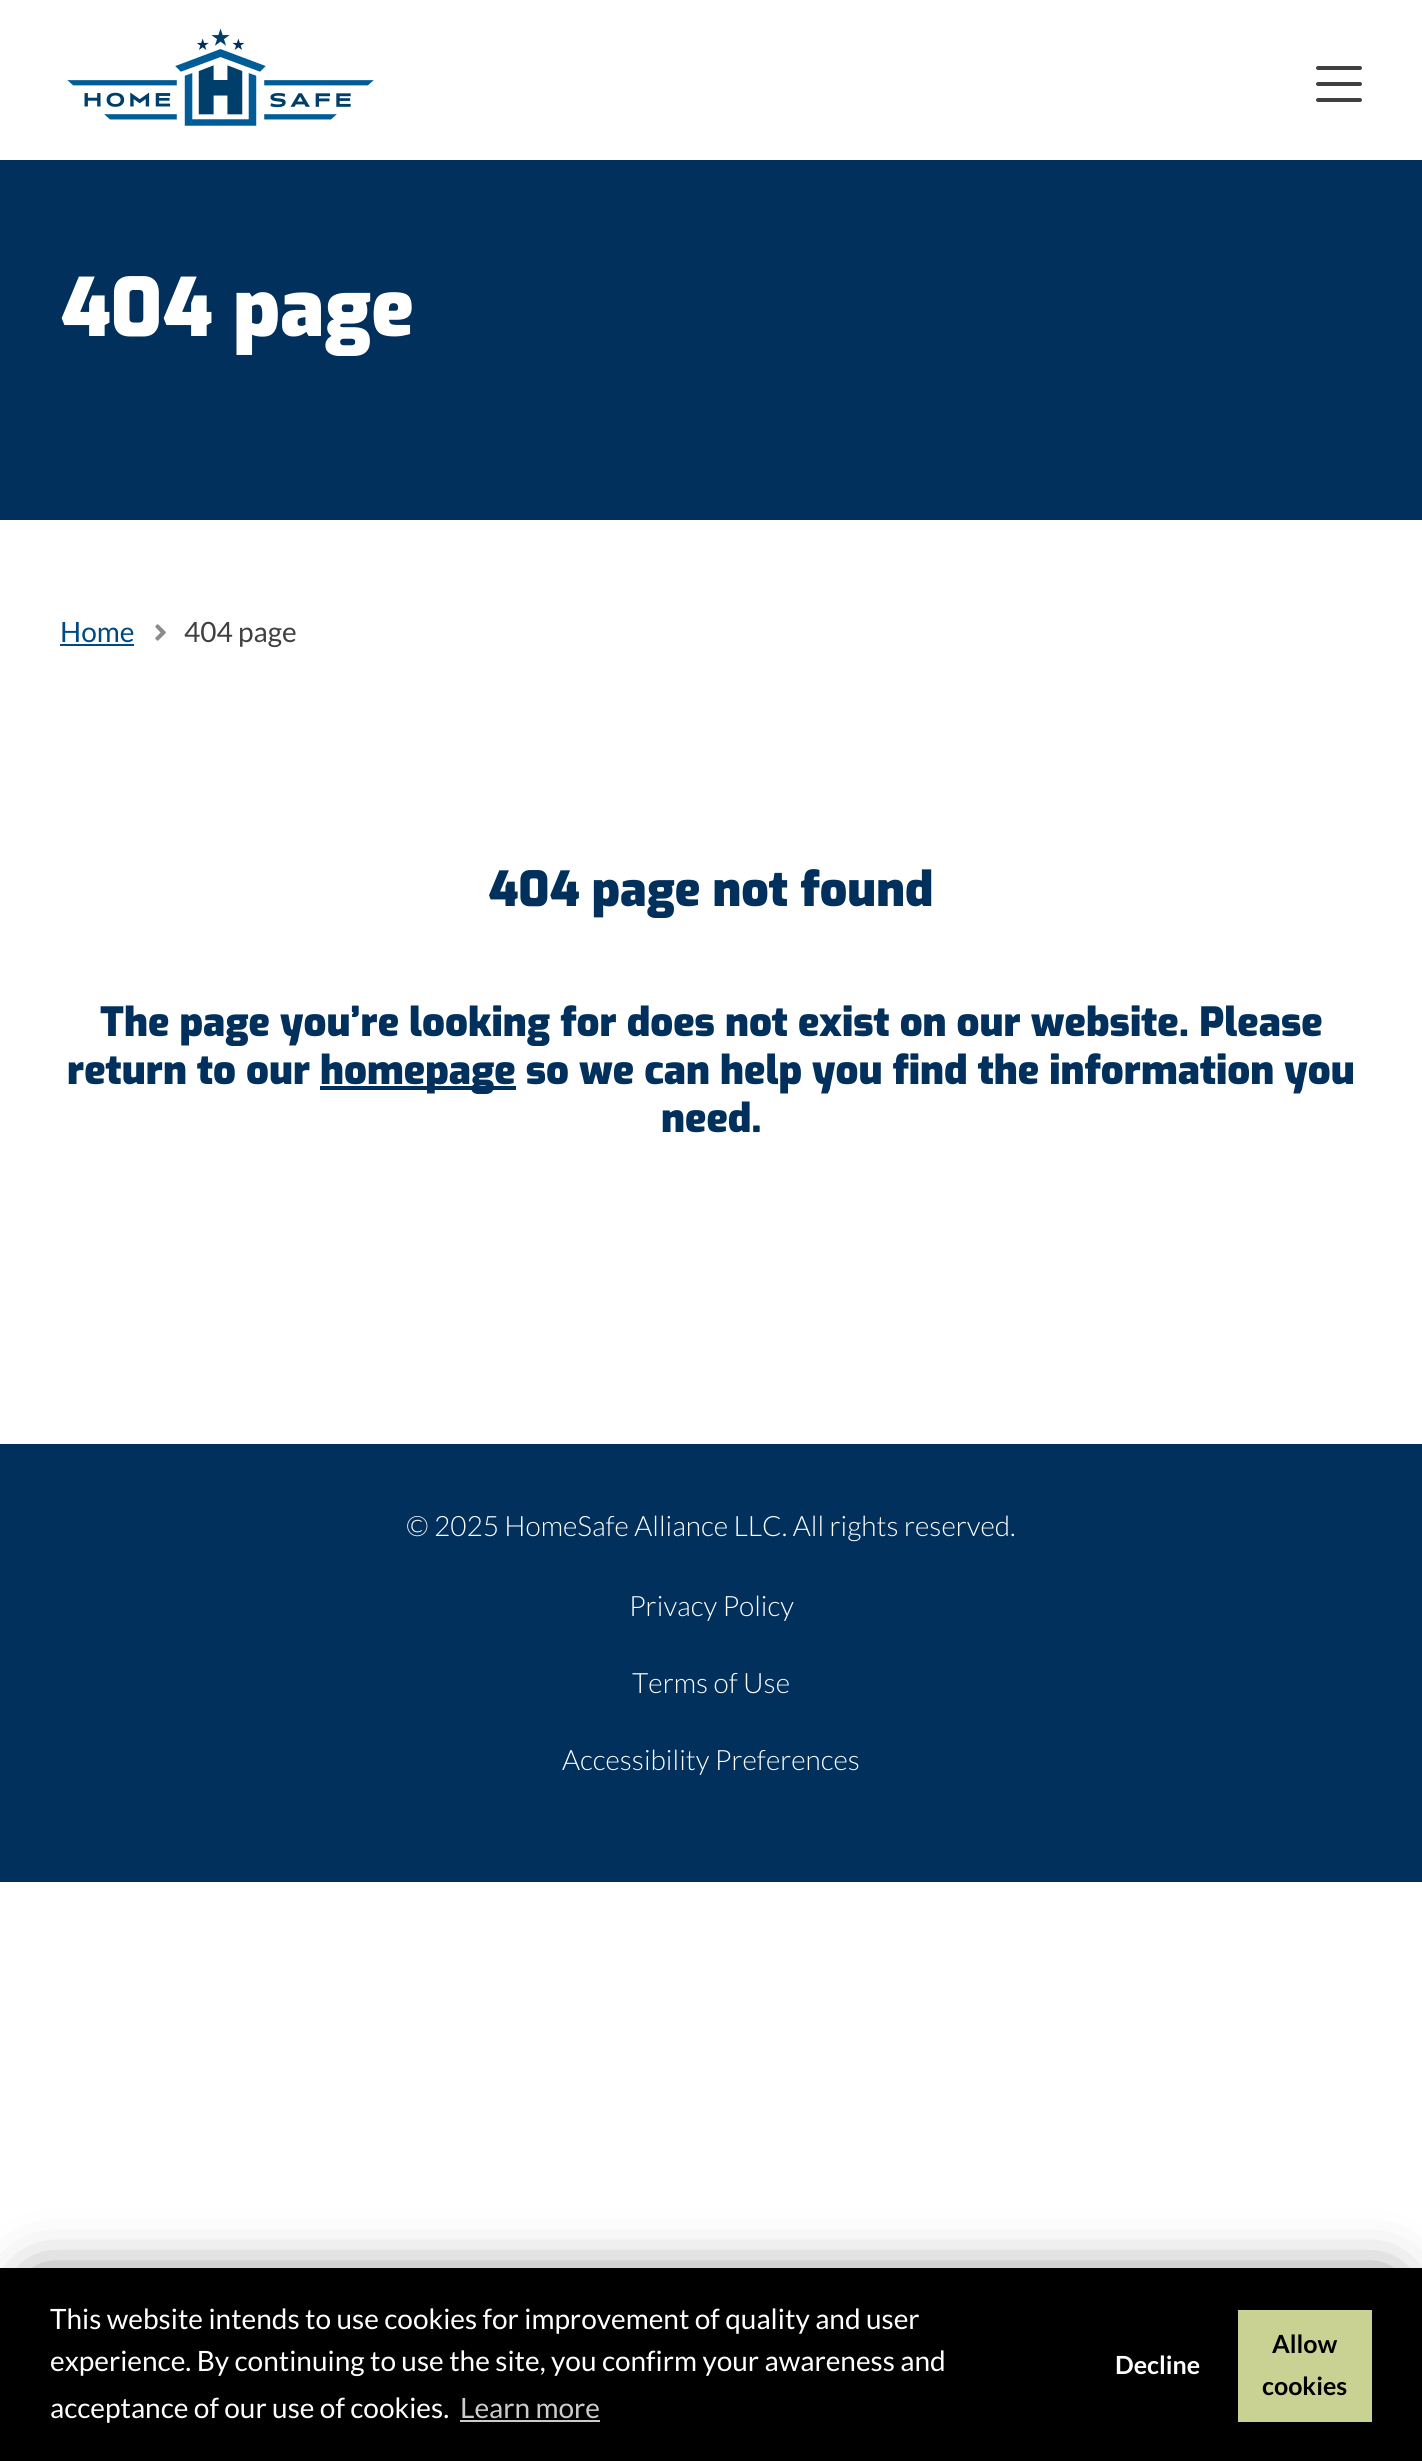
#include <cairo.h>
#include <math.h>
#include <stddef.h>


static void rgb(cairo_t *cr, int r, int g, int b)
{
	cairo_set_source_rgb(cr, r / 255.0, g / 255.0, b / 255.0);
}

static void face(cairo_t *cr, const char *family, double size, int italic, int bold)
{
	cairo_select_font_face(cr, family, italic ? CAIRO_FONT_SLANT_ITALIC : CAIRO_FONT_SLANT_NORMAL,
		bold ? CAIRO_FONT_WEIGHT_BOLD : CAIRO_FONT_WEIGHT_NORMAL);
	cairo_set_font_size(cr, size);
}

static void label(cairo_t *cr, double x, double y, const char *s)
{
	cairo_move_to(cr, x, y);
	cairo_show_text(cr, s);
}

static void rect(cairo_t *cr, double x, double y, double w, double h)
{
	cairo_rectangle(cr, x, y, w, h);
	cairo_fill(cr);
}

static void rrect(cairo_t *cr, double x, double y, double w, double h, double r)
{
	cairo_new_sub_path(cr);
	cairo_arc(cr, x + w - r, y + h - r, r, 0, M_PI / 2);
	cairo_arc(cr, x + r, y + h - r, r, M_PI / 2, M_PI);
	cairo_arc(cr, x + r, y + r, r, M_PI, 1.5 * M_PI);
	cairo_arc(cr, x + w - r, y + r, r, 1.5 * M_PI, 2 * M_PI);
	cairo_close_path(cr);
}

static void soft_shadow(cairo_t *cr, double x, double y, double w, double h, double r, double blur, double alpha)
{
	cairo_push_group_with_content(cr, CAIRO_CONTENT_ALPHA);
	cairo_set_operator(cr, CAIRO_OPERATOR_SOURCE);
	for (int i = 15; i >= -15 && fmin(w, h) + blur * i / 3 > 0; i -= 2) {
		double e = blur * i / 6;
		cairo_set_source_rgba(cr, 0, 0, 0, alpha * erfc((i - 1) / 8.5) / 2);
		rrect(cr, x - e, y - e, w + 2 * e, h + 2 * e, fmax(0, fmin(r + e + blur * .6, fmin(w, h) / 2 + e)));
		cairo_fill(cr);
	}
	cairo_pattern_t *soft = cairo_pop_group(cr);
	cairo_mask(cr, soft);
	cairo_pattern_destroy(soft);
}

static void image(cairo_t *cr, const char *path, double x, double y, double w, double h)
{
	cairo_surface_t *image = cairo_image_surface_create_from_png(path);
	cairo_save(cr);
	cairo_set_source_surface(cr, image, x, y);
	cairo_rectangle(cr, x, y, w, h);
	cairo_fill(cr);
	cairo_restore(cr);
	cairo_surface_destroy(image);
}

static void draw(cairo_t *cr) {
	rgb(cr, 255, 255, 255);
	cairo_paint(cr);
	image(cr, "image0.png", 67, 28, 307, 98);
	rgb(cr, 64, 64, 64);
	rrect(cr, 1316, 66, 46, 4, 2);
	cairo_fill(cr);
	rrect(cr, 1316, 82, 46, 4, 2);
	cairo_fill(cr);
	rrect(cr, 1316, 98, 46, 4, 2);
	cairo_fill(cr);
	rgb(cr, 0, 48, 91);
	rect(cr, 0, 160, 1422, 360);
	face(cr, "Exo Black", 80, 0, 0);
	rgb(cr, 255, 255, 255);
	label(cr, 60, 336, "404 page");
	face(cr, "Lato", 28, 0, 0);
	rgb(cr, 0, 73, 135);
	label(cr, 60, 642, "Home");
	rect(cr, 60, 644, 74, 2);
	image(cr, "image1.png", 155, 624, 11, 17);
	rgb(cr, 64, 64, 64);
	label(cr, 184, 642, "404 page");
	face(cr, "Exo Black", 48, 0, 0);
	rgb(cr, 0, 48, 91);
	label(cr, 488, 906, "404 page not found");
	face(cr, "Exo Black", 40, 0, 0);
	label(cr, 100, 1036, "The page you’re looking for does not exist on our website. Please");
	label(cr, 67, 1084, "return to our");
	rect(cr, 320, 1086, 196, 4);
	label(cr, 320, 1084, "homepage so we can help you find the information you");
	label(cr, 661, 1132, "need.");
	rect(cr, 0, 1444, 1422, 438);
	face(cr, "Lato Light", 28, 0, 0);
	rgb(cr, 255, 255, 255);
	label(cr, 406, 1536, "© 2025 HomeSafe Alliance LLC. All rights reserved.");
	label(cr, 629, 1616, "Privacy Policy");
	label(cr, 632, 1693, "Terms of Use");
	label(cr, 562, 1770, "Accessibility Preferences");
	rgb(cr, 0, 0, 0);
	soft_shadow(cr, 38, 2286, 1350, 122, 0, 31, 0.71);
	rgb(cr, 0, 0, 0);
	rect(cr, 0, 2268, 1422, 193);
	face(cr, "Lato", 28, 0, 0);
	rgb(cr, 255, 255, 255);
	label(cr, 50, 2329, "This website intends to use cookies for improvement of quality and user");
	label(cr, 50, 2371, "experience. By continuing to use the site, you confirm your awareness and");
	label(cr, 50, 2418, "acceptance of our use of cookies.");
	rgb(cr, 204, 204, 204);
	label(cr, 460, 2418, "Learn more");
	rect(cr, 460, 2420, 140, 2);
	face(cr, "Lato", 25, 0, 1);
	rgb(cr, 255, 255, 255);
	label(cr, 1115, 2374, "Decline");
	rgb(cr, 201, 210, 147);
	rect(cr, 1238, 2310, 134, 112);
	rgb(cr, 0, 0, 0);
	label(cr, 1272, 2353, "Allow");
	label(cr, 1262, 2395, "cookies");
}

int main(void) {
	cairo_surface_t *surface = cairo_image_surface_create(CAIRO_FORMAT_RGB24, 1422, 2461);
	cairo_t *cr = cairo_create(surface);
	cairo_font_options_t *options = cairo_font_options_create();
	cairo_font_options_set_hint_metrics(options, CAIRO_HINT_METRICS_OFF);
	cairo_font_options_set_hint_style(options, CAIRO_HINT_STYLE_NONE);
	cairo_set_font_options(cr, options);
	cairo_set_miter_limit(cr, 4);
	draw(cr);
	cairo_surface_write_to_png(surface, "render.png");
	cairo_font_options_destroy(options);
	cairo_destroy(cr);
	cairo_surface_destroy(surface);
	return 0;
}
